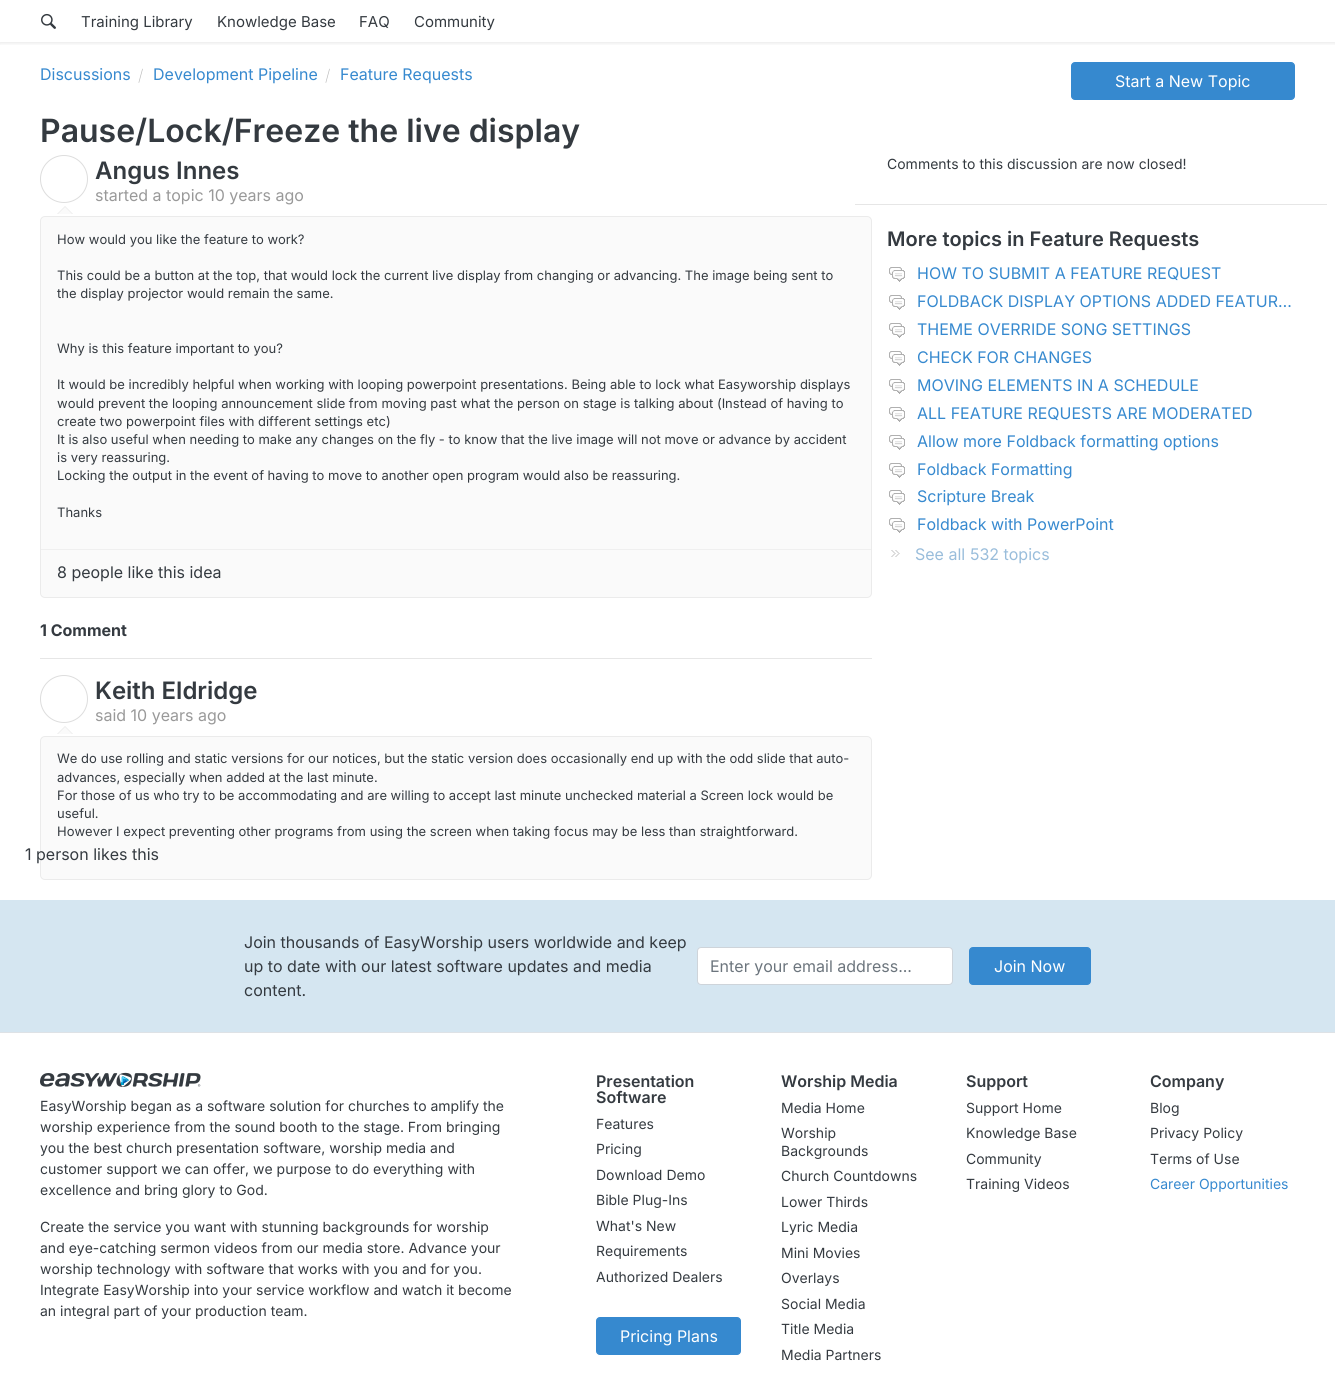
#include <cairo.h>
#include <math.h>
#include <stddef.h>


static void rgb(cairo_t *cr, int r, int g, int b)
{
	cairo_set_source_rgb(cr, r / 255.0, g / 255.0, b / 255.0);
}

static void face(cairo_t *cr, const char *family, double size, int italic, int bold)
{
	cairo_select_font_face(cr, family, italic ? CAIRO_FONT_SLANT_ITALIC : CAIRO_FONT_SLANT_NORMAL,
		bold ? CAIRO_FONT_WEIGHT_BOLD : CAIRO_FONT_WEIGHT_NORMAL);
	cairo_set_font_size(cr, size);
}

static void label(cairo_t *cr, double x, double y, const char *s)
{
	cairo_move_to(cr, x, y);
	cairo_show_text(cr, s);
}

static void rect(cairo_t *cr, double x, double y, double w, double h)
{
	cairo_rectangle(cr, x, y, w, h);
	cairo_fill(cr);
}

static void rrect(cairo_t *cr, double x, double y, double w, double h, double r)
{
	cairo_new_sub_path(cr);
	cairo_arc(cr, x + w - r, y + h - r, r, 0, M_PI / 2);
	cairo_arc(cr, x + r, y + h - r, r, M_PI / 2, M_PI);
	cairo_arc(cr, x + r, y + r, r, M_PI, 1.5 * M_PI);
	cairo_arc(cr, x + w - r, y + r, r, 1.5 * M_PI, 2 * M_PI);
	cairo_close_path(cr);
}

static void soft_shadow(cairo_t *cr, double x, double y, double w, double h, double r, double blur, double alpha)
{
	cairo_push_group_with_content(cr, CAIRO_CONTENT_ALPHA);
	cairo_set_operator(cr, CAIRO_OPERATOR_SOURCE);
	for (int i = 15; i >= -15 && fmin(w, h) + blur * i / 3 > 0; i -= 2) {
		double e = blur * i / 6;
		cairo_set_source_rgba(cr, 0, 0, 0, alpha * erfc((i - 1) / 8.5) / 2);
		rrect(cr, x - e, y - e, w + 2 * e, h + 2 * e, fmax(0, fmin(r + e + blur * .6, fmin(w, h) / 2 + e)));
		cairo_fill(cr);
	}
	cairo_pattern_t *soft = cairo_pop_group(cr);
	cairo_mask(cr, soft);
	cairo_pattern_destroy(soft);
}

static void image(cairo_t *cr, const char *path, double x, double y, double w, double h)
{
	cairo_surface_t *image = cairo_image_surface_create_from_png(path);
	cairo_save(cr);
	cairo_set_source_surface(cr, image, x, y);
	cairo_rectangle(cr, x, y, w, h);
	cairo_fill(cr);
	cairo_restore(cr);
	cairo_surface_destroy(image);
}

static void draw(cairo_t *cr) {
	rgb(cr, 255, 255, 255);
	cairo_paint(cr);
	cairo_save(cr);
	cairo_rectangle(cr, 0, 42, 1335, 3);
	cairo_clip(cr);
	rgb(cr, 0, 0, 0);
	soft_shadow(cr, -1, -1, 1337, 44, 0, 2.5, 0.1);
	cairo_restore(cr);
	image(cr, "image0.png", 41, 13, 15, 16);
	face(cr, "Inter", 15, 0, 0);
	rgb(cr, 52, 58, 64);
	label(cr, 81, 27, "Training Library");
	label(cr, 217, 27, "Knowledge Base");
	label(cr, 359, 27, "FAQ");
	label(cr, 414, 27, "Community");
	face(cr, "Inter", 16, 0, 0);
	rgb(cr, 54, 137, 207);
	label(cr, 40, 80, "Discussions");
	face(cr, "Inter ExtraLight", 16, 0, 0);
	rgb(cr, 187, 187, 187);
	label(cr, 138, 81, "/");
	face(cr, "Inter", 16, 0, 0);
	rgb(cr, 54, 137, 207);
	label(cr, 153, 80, "Development Pipeline");
	face(cr, "Inter ExtraLight", 16, 0, 0);
	rgb(cr, 187, 187, 187);
	label(cr, 325, 81, "/");
	face(cr, "Inter", 16, 0, 0);
	rgb(cr, 54, 137, 207);
	label(cr, 340, 80, "Feature Requests");
	rrect(cr, 1071.5, 62.5, 223, 37, 3.5);
	cairo_fill_preserve(cr);
	cairo_set_line_width(cr, 1);
	cairo_stroke(cr);
	rgb(cr, 255, 255, 255);
	label(cr, 1115, 87, "Start a New Topic");
	face(cr, "Inter SemiBold", 32, 0, 0);
	rgb(cr, 52, 58, 64);
	label(cr, 40, 142, "Pause/Lock/Freeze the live display");
	cairo_new_path(cr);
	cairo_arc(cr, 64, 179, 23.5, 0, 2 * M_PI);
	rgb(cr, 221, 221, 221);
	cairo_stroke(cr);
	rgb(cr, 235, 235, 235);
	cairo_new_path(cr);
	cairo_move_to(cr, 73, 214);
	cairo_line_to(cr, 57, 214);
	cairo_line_to(cr, 65, 206);
	cairo_close_path(cr);
	cairo_fill(cr);
	rgb(cr, 250, 250, 250);
	cairo_new_path(cr);
	cairo_move_to(cr, 72, 214);
	cairo_line_to(cr, 58, 214);
	cairo_line_to(cr, 65, 207);
	cairo_close_path(cr);
	cairo_fill(cr);
	face(cr, "Inter SemiBold", 24, 0, 0);
	rgb(cr, 52, 58, 64);
	label(cr, 95, 179, "Angus Innes");
	face(cr, "Inter", 16, 0, 0);
	rgb(cr, 153, 153, 153);
	label(cr, 95, 201, "started a topic 10 years ago");
	rgb(cr, 250, 250, 250);
	rrect(cr, 40.5, 216.5, 831, 381, 4.5);
	cairo_fill_preserve(cr);
	rgb(cr, 235, 235, 235);
	cairo_stroke(cr);
	face(cr, "Inter", 13, 0, 0);
	rgb(cr, 52, 58, 64);
	label(cr, 57, 244, "How would you like the feature to work?");
	label(cr, 57, 280, "This could be a button at the top, that would lock the current live display from changing or advancing. The image being sent to");
	label(cr, 57, 298, "the display projector would remain the same.");
	label(cr, 57, 353, "Why is this feature important to you?");
	label(cr, 57, 389, "It would be incredibly helpful when working with looping powerpoint presentations. Being able to lock what Easyworship displays");
	label(cr, 57, 408, "would prevent the looping announcement slide from moving past what the person on stage is talking about (Instead of having to");
	label(cr, 57, 426, "create two powerpoint files with different settings etc)");
	label(cr, 57, 444, "It is also useful when needing to make any changes on the fly - to know that the live image will not move or advance by accident");
	label(cr, 57, 462, "is very reassuring.");
	label(cr, 57, 480, "Locking the output in the event of having to move to another open program would also be reassuring.");
	label(cr, 57, 517, "Thanks");
	rgb(cr, 239, 239, 239);
	rect(cr, 41, 549, 830, 1);
	face(cr, "Inter", 16, 0, 0);
	rgb(cr, 52, 58, 64);
	label(cr, 57, 578, "8 people like this idea");
	face(cr, "Inter", 16, 0, 1);
	label(cr, 40, 636, "1 Comment");
	rgb(cr, 230, 230, 230);
	rect(cr, 40, 658, 832, 1);
	cairo_new_path(cr);
	cairo_arc(cr, 64, 699, 23.5, 0, 2 * M_PI);
	rgb(cr, 221, 221, 221);
	cairo_stroke(cr);
	rgb(cr, 235, 235, 235);
	cairo_new_path(cr);
	cairo_move_to(cr, 73, 734);
	cairo_line_to(cr, 57, 734);
	cairo_line_to(cr, 65, 726);
	cairo_close_path(cr);
	cairo_fill(cr);
	rgb(cr, 250, 250, 250);
	cairo_new_path(cr);
	cairo_move_to(cr, 72, 734);
	cairo_line_to(cr, 58, 734);
	cairo_line_to(cr, 65, 727);
	cairo_close_path(cr);
	cairo_fill(cr);
	face(cr, "Inter SemiBold", 24, 0, 0);
	rgb(cr, 52, 58, 64);
	label(cr, 95, 699, "Keith Eldridge");
	face(cr, "Inter", 16, 0, 0);
	rgb(cr, 153, 153, 153);
	label(cr, 95, 721, "said 10 years ago");
	rgb(cr, 250, 250, 250);
	rrect(cr, 40.5, 736.5, 831, 143, 4.5);
	cairo_fill_preserve(cr);
	rgb(cr, 235, 235, 235);
	cairo_stroke(cr);
	face(cr, "Inter", 13, 0, 0);
	rgb(cr, 52, 58, 64);
	label(cr, 57, 763, "We do use rolling and static versions for our notices, but the static version does occasionally end up with the odd slide that auto-");
	label(cr, 57, 782, "advances, especially when added at the last minute.");
	label(cr, 57, 800, "For those of us who try to be accommodating and are willing to accept last minute unchecked material a Screen lock would be");
	label(cr, 57, 818, "useful.");
	label(cr, 57, 836, "However I expect preventing other programs from using the screen when taking focus may be less than straightforward.");
	face(cr, "Inter", 16, 0, 0);
	label(cr, 25, 860, "1 person likes this");
	face(cr, "Inter", 14, 0, 0);
	label(cr, 887, 169, "Comments to this discussion are now closed!");
	rgb(cr, 230, 230, 230);
	rect(cr, 855, 204, 472, 1);
	face(cr, "Inter SemiBold", 20, 0, 0);
	rgb(cr, 52, 58, 64);
	label(cr, 887, 246, "More topics in Feature Requests");
	image(cr, "image1.png", 889, 267, 16, 15);
	face(cr, "Inter", 16, 0, 0);
	rgb(cr, 54, 137, 207);
	label(cr, 917, 279, "HOW TO SUBMIT A FEATURE REQUEST");
	image(cr, "image1.png", 889, 295, 16, 15);
	label(cr, 917, 307, "FOLDBACK DISPLAY OPTIONS ADDED FEATUR…");
	image(cr, "image1.png", 889, 323, 16, 15);
	label(cr, 917, 335, "THEME OVERRIDE SONG SETTINGS");
	image(cr, "image1.png", 889, 351, 16, 15);
	label(cr, 917, 363, "CHECK FOR CHANGES");
	image(cr, "image1.png", 889, 379, 16, 15);
	label(cr, 917, 391, "MOVING ELEMENTS IN A SCHEDULE");
	image(cr, "image1.png", 889, 407, 16, 15);
	label(cr, 917, 419, "ALL FEATURE REQUESTS ARE MODERATED");
	image(cr, "image1.png", 889, 435, 16, 15);
	label(cr, 917, 447, "Allow more Foldback formatting options");
	image(cr, "image1.png", 889, 463, 16, 15);
	label(cr, 917, 475, "Foldback Formatting");
	image(cr, "image1.png", 889, 490, 16, 15);
	label(cr, 917, 502, "Scripture Break");
	image(cr, "image1.png", 889, 518, 16, 15);
	label(cr, 917, 530, "Foldback with PowerPoint");
	image(cr, "image2.png", 891, 550, 9, 7);
	rgb(cr, 153, 189, 219);
	label(cr, 915, 560, "See all 532 topics");
	rgb(cr, 213, 230, 241);
	rect(cr, 0, 900, 1335, 132);
	rgb(cr, 52, 58, 64);
	label(cr, 244, 948, "Join thousands of EasyWorship users worldwide and keep");
	label(cr, 244, 972, "up to date with our latest software updates and media");
	label(cr, 244, 996, "content.");
	rgb(cr, 255, 255, 255);
	rrect(cr, 697.5, 947.5, 255, 37, 3.5);
	cairo_fill_preserve(cr);
	rgb(cr, 206, 212, 218);
	cairo_stroke(cr);
	rgb(cr, 108, 117, 125);
	label(cr, 710, 972, "Enter your email address...");
	rgb(cr, 54, 137, 207);
	rrect(cr, 969.5, 947.5, 121, 37, 3.5);
	cairo_fill_preserve(cr);
	cairo_stroke(cr);
	rgb(cr, 255, 255, 255);
	label(cr, 994, 972, "Join Now");
	rgb(cr, 222, 226, 230);
	rect(cr, 0, 1032, 1335, 1);
	image(cr, "image3.png", 40, 1073, 15, 14);
	image(cr, "image4.png", 55, 1073, 15, 14);
	image(cr, "image5.png", 70, 1073, 15, 14);
	image(cr, "image6.png", 85, 1073, 15, 14);
	image(cr, "image7.png", 97, 1073, 21, 14);
	image(cr, "image8.png", 116, 1072, 16, 15);
	image(cr, "image9.png", 132, 1073, 16, 14);
	image(cr, "image10.png", 148, 1073, 15, 14);
	image(cr, "image11.png", 162, 1073, 17, 14);
	image(cr, "image12.png", 179, 1073, 6, 14);
	image(cr, "image13.png", 185, 1073, 16, 14);
	image(cr, "image15.png", 122, 1076, 7, 6);
	cairo_set_source_rgba(cr, 0, 0.627, 0.796, 0.99);
	rect(cr, 121, 1082, 3, 3);
	image(cr, "image14.png", 121, 1076, 6, 7);
	cairo_set_source_rgba(cr, 0.067, 0.573, 0.82, 0.99);
	rect(cr, 123, 1079, 3, 3);
	rgb(cr, 0, 98, 175);
	cairo_new_path(cr);
	cairo_move_to(cr, 126, 1080);
	cairo_line_to(cr, 123, 1082);
	cairo_line_to(cr, 123, 1084);
	cairo_line_to(cr, 128, 1081);
	cairo_close_path(cr);
	cairo_fill(cr);
	image(cr, "image16.png", 197, 1084, 4, 3);
	face(cr, "Inter", 14, 0, 0);
	rgb(cr, 52, 58, 64);
	label(cr, 40, 1111, "EasyWorship began as a software solution for churches to amplify the");
	label(cr, 40, 1132, "worship experience from the sound booth to the stage. From bringing");
	label(cr, 40, 1153, "you the best church presentation software, worship media and");
	label(cr, 40, 1174, "customer support we can offer, we purpose to do everything with");
	label(cr, 40, 1195, "excellence and bring glory to God.");
	label(cr, 40, 1232, "Create the service you want with stunning backgrounds for worship");
	label(cr, 40, 1253, "and eye-catching sermon videos from our media store. Advance your");
	label(cr, 40, 1274, "worship technology with software that works with you and for you.");
	label(cr, 40, 1295, "Integrate EasyWorship into your service workflow and watch it become");
	label(cr, 40, 1316, "an integral part of your production team.");
	face(cr, "Inter SemiBold", 16, 0, 0);
	label(cr, 596, 1087, "Presentation");
	label(cr, 596, 1103, "Software");
	face(cr, "Inter", 14, 0, 0);
	label(cr, 596, 1129, "Features");
	label(cr, 596, 1154, "Pricing");
	label(cr, 596, 1180, "Download Demo");
	label(cr, 596, 1205, "Bible Plug-Ins");
	label(cr, 596, 1231, "What's New");
	label(cr, 596, 1256, "Requirements");
	label(cr, 596, 1282, "Authorized Dealers");
	rgb(cr, 54, 137, 207);
	rrect(cr, 596.5, 1317.5, 144, 37, 3.5);
	cairo_fill_preserve(cr);
	cairo_stroke(cr);
	face(cr, "Inter", 16, 0, 0);
	rgb(cr, 255, 255, 255);
	label(cr, 620, 1342, "Pricing Plans");
	face(cr, "Inter SemiBold", 16, 0, 0);
	rgb(cr, 52, 58, 64);
	label(cr, 781, 1087, "Worship Media");
	face(cr, "Inter", 14, 0, 0);
	label(cr, 781, 1113, "Media Home");
	label(cr, 781, 1138, "Worship");
	label(cr, 781, 1156, "Backgrounds");
	label(cr, 781, 1181, "Church Countdowns");
	label(cr, 781, 1207, "Lower Thirds");
	label(cr, 781, 1232, "Lyric Media");
	label(cr, 781, 1258, "Mini Movies");
	label(cr, 781, 1283, "Overlays");
	label(cr, 781, 1309, "Social Media");
	label(cr, 781, 1334, "Title Media");
	label(cr, 781, 1360, "Media Partners");
	face(cr, "Inter SemiBold", 16, 0, 0);
	label(cr, 966, 1087, "Support");
	face(cr, "Inter", 14, 0, 0);
	label(cr, 966, 1113, "Support Home");
	label(cr, 966, 1138, "Knowledge Base");
	label(cr, 966, 1164, "Community");
	label(cr, 966, 1189, "Training Videos");
	face(cr, "Inter SemiBold", 16, 0, 0);
	label(cr, 1150, 1087, "Company");
	face(cr, "Inter", 14, 0, 0);
	label(cr, 1150, 1113, "Blog");
	label(cr, 1150, 1138, "Privacy Policy");
	label(cr, 1150, 1164, "Terms of Use");
	rgb(cr, 54, 137, 207);
	label(cr, 1150, 1189, "Career Opportunities");
}

int main(void) {
	cairo_surface_t *surface = cairo_image_surface_create(CAIRO_FORMAT_RGB24, 1335, 1390);
	cairo_t *cr = cairo_create(surface);
	cairo_font_options_t *options = cairo_font_options_create();
	cairo_font_options_set_hint_metrics(options, CAIRO_HINT_METRICS_OFF);
	cairo_font_options_set_hint_style(options, CAIRO_HINT_STYLE_NONE);
	cairo_set_font_options(cr, options);
	cairo_set_miter_limit(cr, 4);
	draw(cr);
	cairo_surface_write_to_png(surface, "render.png");
	cairo_font_options_destroy(options);
	cairo_destroy(cr);
	cairo_surface_destroy(surface);
	return 0;
}
